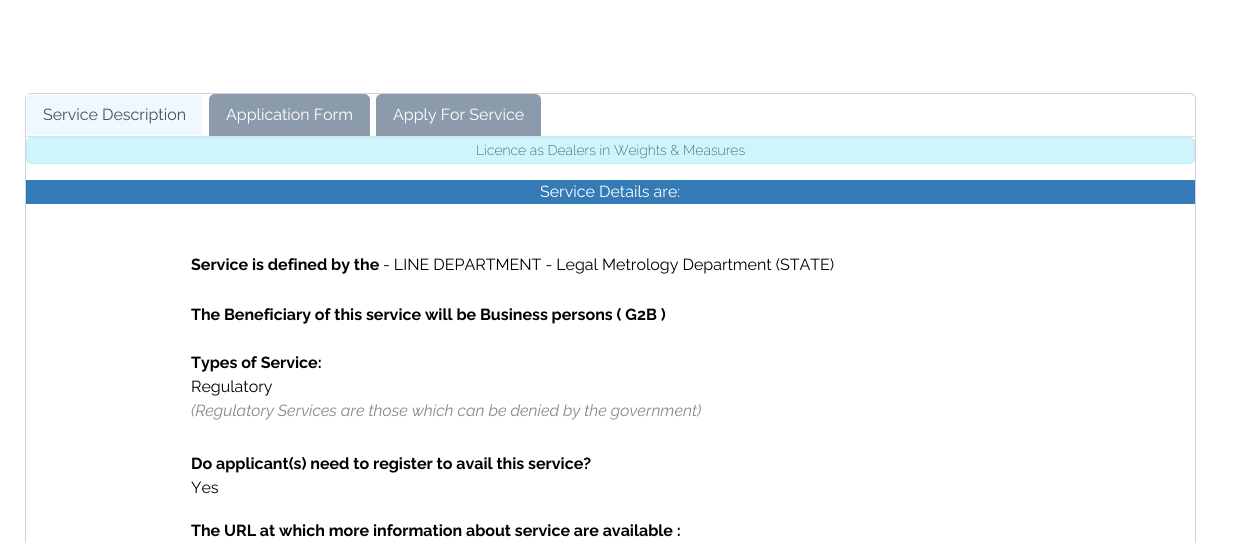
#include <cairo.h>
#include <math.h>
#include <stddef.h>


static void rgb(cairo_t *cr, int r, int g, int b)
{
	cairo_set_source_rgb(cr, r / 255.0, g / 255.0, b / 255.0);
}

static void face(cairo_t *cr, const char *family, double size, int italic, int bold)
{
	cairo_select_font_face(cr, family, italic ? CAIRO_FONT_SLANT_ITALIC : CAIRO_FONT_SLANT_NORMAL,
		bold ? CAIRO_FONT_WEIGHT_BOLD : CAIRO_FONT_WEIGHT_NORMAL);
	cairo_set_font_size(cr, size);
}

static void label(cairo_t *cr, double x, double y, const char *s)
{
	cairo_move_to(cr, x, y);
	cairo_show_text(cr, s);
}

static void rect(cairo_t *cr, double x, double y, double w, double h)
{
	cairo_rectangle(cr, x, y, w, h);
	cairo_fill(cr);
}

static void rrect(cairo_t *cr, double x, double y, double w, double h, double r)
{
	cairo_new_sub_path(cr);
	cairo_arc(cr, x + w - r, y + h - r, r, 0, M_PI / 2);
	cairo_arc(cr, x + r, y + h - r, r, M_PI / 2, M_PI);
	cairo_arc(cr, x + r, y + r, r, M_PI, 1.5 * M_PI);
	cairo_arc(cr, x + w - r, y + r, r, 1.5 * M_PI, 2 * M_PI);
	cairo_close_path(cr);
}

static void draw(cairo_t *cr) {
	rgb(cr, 255, 255, 255);
	cairo_paint(cr);
	rrect(cr, 25.5, 93.5, 1170, 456, 5.5);
	rgb(cr, 210, 210, 210);
	cairo_set_line_width(cr, 1);
	cairo_stroke(cr);
	rgb(cr, 222, 226, 230);
	rect(cr, 26, 136, 1169, 1);
	rgb(cr, 240, 248, 255);
	cairo_rectangle(cr, 26.5, 94.5, 176, 41);
	cairo_fill_preserve(cr);
	rgb(cr, 255, 255, 255);
	cairo_stroke(cr);
	face(cr, "Raleway", 16, 0, 0);
	rgb(cr, 73, 80, 87);
	label(cr, 43, 120, "Service Description");
	rgb(cr, 140, 155, 171);
	cairo_new_path(cr);
	cairo_move_to(cr, 215, 94);
	cairo_line_to(cr, 364, 94);
	cairo_curve_to(cr, 367.5, 94, 370, 96.5, 370, 100);
	cairo_line_to(cr, 370, 136);
	cairo_line_to(cr, 209, 136);
	cairo_line_to(cr, 209, 100);
	cairo_curve_to(cr, 209, 96.5, 211.5, 94, 215, 94);
	cairo_close_path(cr);
	cairo_fill(cr);
	rgb(cr, 255, 255, 255);
	label(cr, 226, 120, "Application Form");
	rgb(cr, 140, 155, 171);
	cairo_new_path(cr);
	cairo_move_to(cr, 382, 94);
	cairo_line_to(cr, 535, 94);
	cairo_curve_to(cr, 538.5, 94, 541, 96.5, 541, 100);
	cairo_line_to(cr, 541, 136);
	cairo_line_to(cr, 376, 136);
	cairo_line_to(cr, 376, 100);
	cairo_curve_to(cr, 376, 96.5, 378.5, 94, 382, 94);
	cairo_close_path(cr);
	cairo_fill(cr);
	rgb(cr, 255, 255, 255);
	label(cr, 393, 120, "Apply For Service");
	rgb(cr, 207, 244, 252);
	rrect(cr, 26.5, 137.5, 1168, 26, 5.5);
	cairo_fill_preserve(cr);
	rgb(cr, 182, 239, 251);
	cairo_stroke(cr);
	face(cr, "Raleway ExtraLight", 14, 0, 0);
	rgb(cr, 5, 81, 96);
	label(cr, 476, 155, "Licence as Dealers in Weights & Measures");
	rgb(cr, 51, 122, 183);
	rect(cr, 26, 180, 1169, 24);
	face(cr, "Raleway", 16, 0, 0);
	rgb(cr, 255, 255, 255);
	label(cr, 540, 197, "Service Details are:");
	face(cr, "Raleway", 16, 0, 1);
	rgb(cr, 0, 0, 0);
	label(cr, 191, 270, "Service is defined by the");
	face(cr, "Raleway", 16, 0, 0);
	label(cr, 383, 270, "- LINE DEPARTMENT - Legal Metrology Department (STATE)");
	face(cr, "Raleway", 16, 0, 1);
	label(cr, 191, 320, "The Beneficiary of this service will be Business persons ( G2B )");
	label(cr, 191, 368, "Types of Service:");
	face(cr, "Raleway", 16, 0, 0);
	label(cr, 191, 392, "Regulatory");
	face(cr, "Raleway", 16, 1, 0);
	rgb(cr, 136, 136, 136);
	label(cr, 191, 416, "(Regulatory Services are those which can be denied by the government)");
	face(cr, "Raleway", 16, 0, 1);
	rgb(cr, 0, 0, 0);
	label(cr, 191, 469, "Do applicant(s) need to register to avail this service?");
	face(cr, "Raleway", 16, 0, 0);
	label(cr, 191, 493, "Yes");
	face(cr, "Raleway", 16, 0, 1);
	label(cr, 191, 536, "The URL at which more information about service are available :");
}

int main(void) {
	cairo_surface_t *surface = cairo_image_surface_create(CAIRO_FORMAT_RGB24, 1246, 543);
	cairo_t *cr = cairo_create(surface);
	cairo_font_options_t *options = cairo_font_options_create();
	cairo_font_options_set_hint_metrics(options, CAIRO_HINT_METRICS_OFF);
	cairo_font_options_set_hint_style(options, CAIRO_HINT_STYLE_NONE);
	cairo_set_font_options(cr, options);
	cairo_set_miter_limit(cr, 4);
	draw(cr);
	cairo_surface_write_to_png(surface, "render.png");
	cairo_font_options_destroy(options);
	cairo_destroy(cr);
	cairo_surface_destroy(surface);
	return 0;
}
